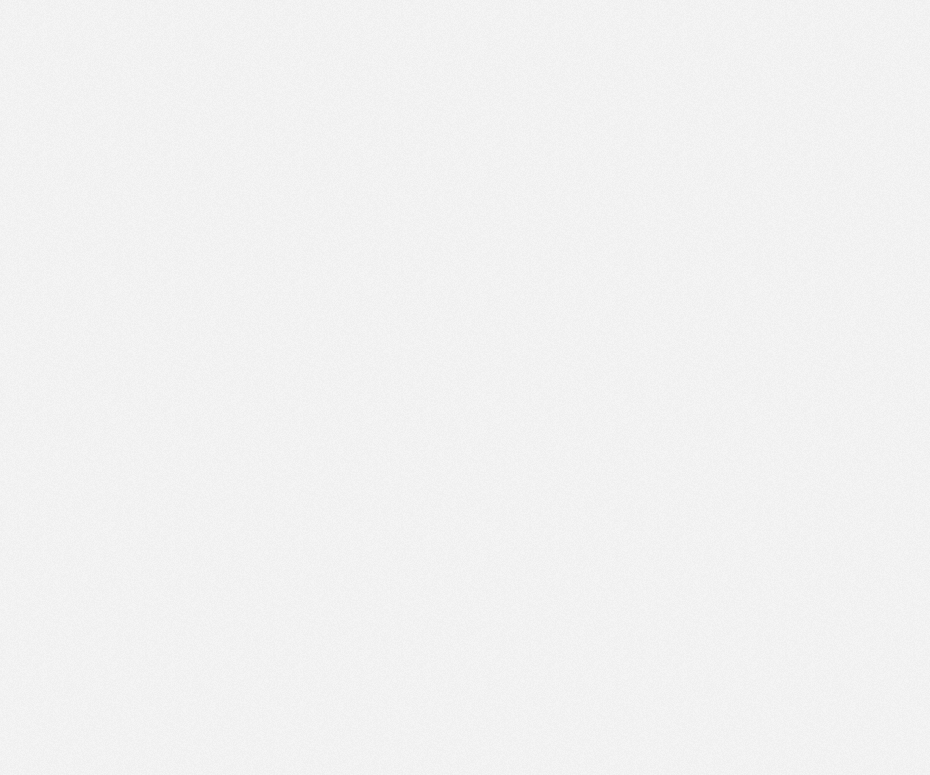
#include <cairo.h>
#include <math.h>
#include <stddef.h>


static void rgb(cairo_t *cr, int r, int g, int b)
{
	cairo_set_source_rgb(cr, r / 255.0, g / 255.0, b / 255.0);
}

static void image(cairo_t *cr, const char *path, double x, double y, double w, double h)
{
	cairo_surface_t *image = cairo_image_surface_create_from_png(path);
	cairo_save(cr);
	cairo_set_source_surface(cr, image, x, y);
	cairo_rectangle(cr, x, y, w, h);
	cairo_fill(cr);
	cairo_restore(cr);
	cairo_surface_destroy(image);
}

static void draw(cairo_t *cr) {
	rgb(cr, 255, 255, 255);
	cairo_paint(cr);
	image(cr, "image0.png", 0, 0, 930, 775);
}

int main(void) {
	cairo_surface_t *surface = cairo_image_surface_create(CAIRO_FORMAT_RGB24, 930, 775);
	cairo_t *cr = cairo_create(surface);
	cairo_font_options_t *options = cairo_font_options_create();
	cairo_font_options_set_hint_metrics(options, CAIRO_HINT_METRICS_OFF);
	cairo_font_options_set_hint_style(options, CAIRO_HINT_STYLE_NONE);
	cairo_set_font_options(cr, options);
	cairo_set_miter_limit(cr, 4);
	draw(cr);
	cairo_surface_write_to_png(surface, "render.png");
	cairo_font_options_destroy(options);
	cairo_destroy(cr);
	cairo_surface_destroy(surface);
	return 0;
}
